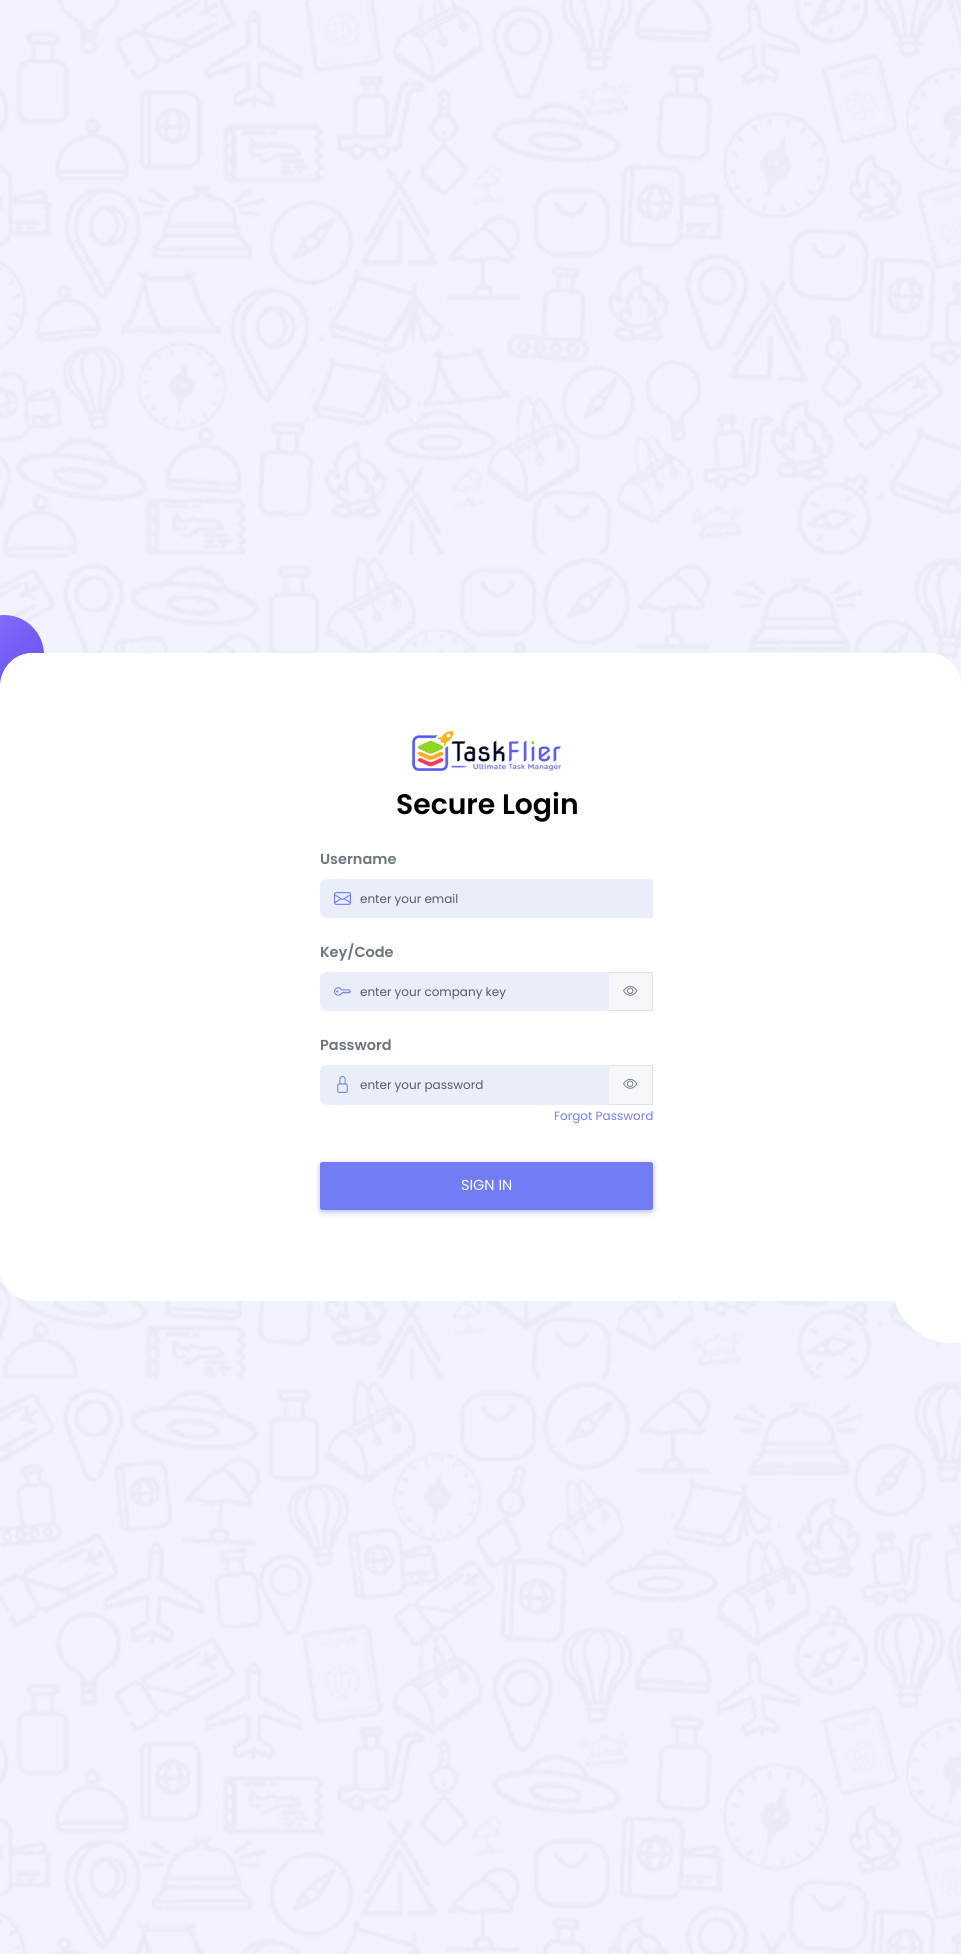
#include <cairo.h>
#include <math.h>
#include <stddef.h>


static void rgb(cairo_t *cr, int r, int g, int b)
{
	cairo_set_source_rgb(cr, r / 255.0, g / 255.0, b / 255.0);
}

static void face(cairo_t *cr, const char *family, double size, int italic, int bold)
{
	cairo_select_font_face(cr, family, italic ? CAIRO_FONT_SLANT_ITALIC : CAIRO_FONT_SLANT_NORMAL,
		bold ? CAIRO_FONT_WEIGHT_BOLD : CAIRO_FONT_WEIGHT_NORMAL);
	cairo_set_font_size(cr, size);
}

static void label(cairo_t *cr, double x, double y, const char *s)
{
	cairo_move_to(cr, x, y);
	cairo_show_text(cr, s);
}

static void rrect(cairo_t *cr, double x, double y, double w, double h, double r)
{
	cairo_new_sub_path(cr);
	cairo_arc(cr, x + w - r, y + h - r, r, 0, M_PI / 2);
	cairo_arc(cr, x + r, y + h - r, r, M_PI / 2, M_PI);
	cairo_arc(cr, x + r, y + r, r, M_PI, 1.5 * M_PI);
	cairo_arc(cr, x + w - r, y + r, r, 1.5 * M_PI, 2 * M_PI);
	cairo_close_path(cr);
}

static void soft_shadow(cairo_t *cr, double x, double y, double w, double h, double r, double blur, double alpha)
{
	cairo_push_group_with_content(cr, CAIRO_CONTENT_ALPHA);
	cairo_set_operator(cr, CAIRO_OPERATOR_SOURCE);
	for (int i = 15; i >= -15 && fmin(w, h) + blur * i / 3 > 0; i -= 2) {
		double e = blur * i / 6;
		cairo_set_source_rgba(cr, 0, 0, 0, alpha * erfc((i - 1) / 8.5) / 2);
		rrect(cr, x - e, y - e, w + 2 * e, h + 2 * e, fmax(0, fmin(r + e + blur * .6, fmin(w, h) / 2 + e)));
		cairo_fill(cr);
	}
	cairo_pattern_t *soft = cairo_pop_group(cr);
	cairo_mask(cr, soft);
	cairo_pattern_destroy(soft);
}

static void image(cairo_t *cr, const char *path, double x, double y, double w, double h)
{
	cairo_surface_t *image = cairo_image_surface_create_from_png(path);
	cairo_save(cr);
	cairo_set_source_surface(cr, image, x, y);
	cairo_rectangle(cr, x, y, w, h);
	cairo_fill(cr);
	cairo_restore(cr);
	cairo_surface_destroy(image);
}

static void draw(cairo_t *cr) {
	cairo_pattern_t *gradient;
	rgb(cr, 255, 255, 255);
	cairo_paint(cr);
	image(cr, "image0.png", 0, 0, 961, 1954);
	gradient = cairo_pattern_create_linear(-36, 615, 44, 695);
	cairo_pattern_add_color_stop_rgba(gradient, 0, 0.529, 0.455, 1, 1);
	cairo_pattern_add_color_stop_rgba(gradient, 1, 0.392, 0.306, 0.937, 1);
	cairo_set_source(cr, gradient);
	cairo_pattern_destroy(gradient);
	cairo_arc(cr, 4, 655, 40, 0, 2 * M_PI);
	cairo_fill(cr);
	rgb(cr, 255, 255, 255);
	cairo_arc(cr, 952, 1283, 60, 0, 2 * M_PI);
	cairo_fill(cr);
	rrect(cr, 0, 653, 961, 648, 33);
	cairo_fill(cr);
	cairo_save(cr);
	rrect(cr, 0, 653, 961, 648, 33);
	cairo_clip(cr);
	cairo_new_path(cr);
	cairo_move_to(cr, 18, 653);
	cairo_line_to(cr, 928, 653);
	cairo_curve_to(cr, 946, 653, 961, 668, 961, 686);
	cairo_line_to(cr, 961, 1283);
	cairo_curve_to(cr, 961, 1286.5, 958.5, 1289, 955, 1289);
	cairo_line_to(cr, 18, 1289);
	cairo_curve_to(cr, 14.5, 1289, 12, 1286.5, 12, 1283);
	cairo_line_to(cr, 12, 659);
	cairo_curve_to(cr, 12, 655.5, 14.5, 653, 18, 653);
	cairo_close_path(cr);
	cairo_fill(cr);
	cairo_restore(cr);
	image(cr, "image1.png", 411, 731, 150, 40);
	face(cr, "Poppins SemiBold", 28.25, 0, 0);
	rgb(cr, 0, 0, 0);
	label(cr, 396, 814, "Secure Login");
	face(cr, "Poppins SemiBold", 14.5, 0, 0);
	rgb(cr, 108, 117, 125);
	label(cr, 320, 864, "Username");
	rgb(cr, 234, 238, 251);
	cairo_new_path(cr);
	cairo_move_to(cr, 327, 879);
	cairo_line_to(cr, 653, 879);
	cairo_line_to(cr, 653, 918);
	cairo_line_to(cr, 327, 918);
	cairo_curve_to(cr, 323, 918, 320, 915, 320, 911);
	cairo_line_to(cr, 320, 886);
	cairo_curve_to(cr, 320, 882, 323, 879, 327, 879);
	cairo_close_path(cr);
	cairo_fill(cr);
	image(cr, "image2.png", 334, 892, 17, 13);
	face(cr, "Poppins", 12, 0, 0);
	rgb(cr, 86, 90, 102);
	label(cr, 360, 903, "enter your email");
	face(cr, "Poppins SemiBold", 14.5, 0, 0);
	rgb(cr, 108, 117, 125);
	label(cr, 320, 957, "Key/Code");
	rgb(cr, 246, 247, 251);
	cairo_rectangle(cr, 608.5, 972.5, 44, 38);
	cairo_fill_preserve(cr);
	rgb(cr, 222, 226, 230);
	cairo_set_line_width(cr, 1);
	cairo_stroke(cr);
	rgb(cr, 234, 238, 251);
	cairo_new_path(cr);
	cairo_move_to(cr, 327, 972);
	cairo_line_to(cr, 609, 972);
	cairo_line_to(cr, 609, 1011);
	cairo_line_to(cr, 327, 1011);
	cairo_curve_to(cr, 323, 1011, 320, 1008, 320, 1004);
	cairo_line_to(cr, 320, 979);
	cairo_curve_to(cr, 320, 975, 323, 972, 327, 972);
	cairo_close_path(cr);
	cairo_fill(cr);
	image(cr, "image3.png", 334, 987, 17, 9);
	face(cr, "Poppins", 12, 0, 0);
	rgb(cr, 86, 90, 102);
	label(cr, 360, 996, "enter your company key");
	image(cr, "image4.png", 623, 985, 15, 11);
	face(cr, "Poppins SemiBold", 14.5, 0, 0);
	rgb(cr, 108, 117, 125);
	label(cr, 320, 1050, "Password");
	rgb(cr, 246, 247, 251);
	cairo_rectangle(cr, 608.5, 1065.5, 44, 39);
	cairo_fill_preserve(cr);
	rgb(cr, 222, 226, 230);
	cairo_stroke(cr);
	rgb(cr, 234, 238, 251);
	cairo_new_path(cr);
	cairo_move_to(cr, 327, 1065);
	cairo_line_to(cr, 609, 1065);
	cairo_line_to(cr, 609, 1105);
	cairo_line_to(cr, 327, 1105);
	cairo_curve_to(cr, 323, 1105, 320, 1102, 320, 1098);
	cairo_line_to(cr, 320, 1072);
	cairo_curve_to(cr, 320, 1068, 323, 1065, 327, 1065);
	cairo_close_path(cr);
	cairo_fill(cr);
	image(cr, "image5.png", 337, 1076, 11, 17);
	face(cr, "Poppins", 12, 0, 0);
	rgb(cr, 86, 90, 102);
	label(cr, 360, 1089, "enter your password");
	image(cr, "image4.png", 623, 1078, 15, 11);
	rgb(cr, 114, 124, 245);
	label(cr, 554, 1120, "Forgot Password");
	rgb(cr, 114, 124, 245);
	soft_shadow(cr, 320, 1164, 333, 48, 2.5, 3, 0.5);
	rgb(cr, 114, 124, 245);
	rrect(cr, 320.5, 1162.5, 332, 47, 2);
	cairo_fill_preserve(cr);
	cairo_stroke(cr);
	face(cr, "Poppins", 14.5, 0, 0);
	rgb(cr, 255, 255, 255);
	label(cr, 461, 1190, "SIGN IN");
}

int main(void) {
	cairo_surface_t *surface = cairo_image_surface_create(CAIRO_FORMAT_RGB24, 961, 1954);
	cairo_t *cr = cairo_create(surface);
	cairo_font_options_t *options = cairo_font_options_create();
	cairo_font_options_set_hint_metrics(options, CAIRO_HINT_METRICS_OFF);
	cairo_font_options_set_hint_style(options, CAIRO_HINT_STYLE_NONE);
	cairo_set_font_options(cr, options);
	cairo_set_miter_limit(cr, 4);
	draw(cr);
	cairo_surface_write_to_png(surface, "render.png");
	cairo_font_options_destroy(options);
	cairo_destroy(cr);
	cairo_surface_destroy(surface);
	return 0;
}
